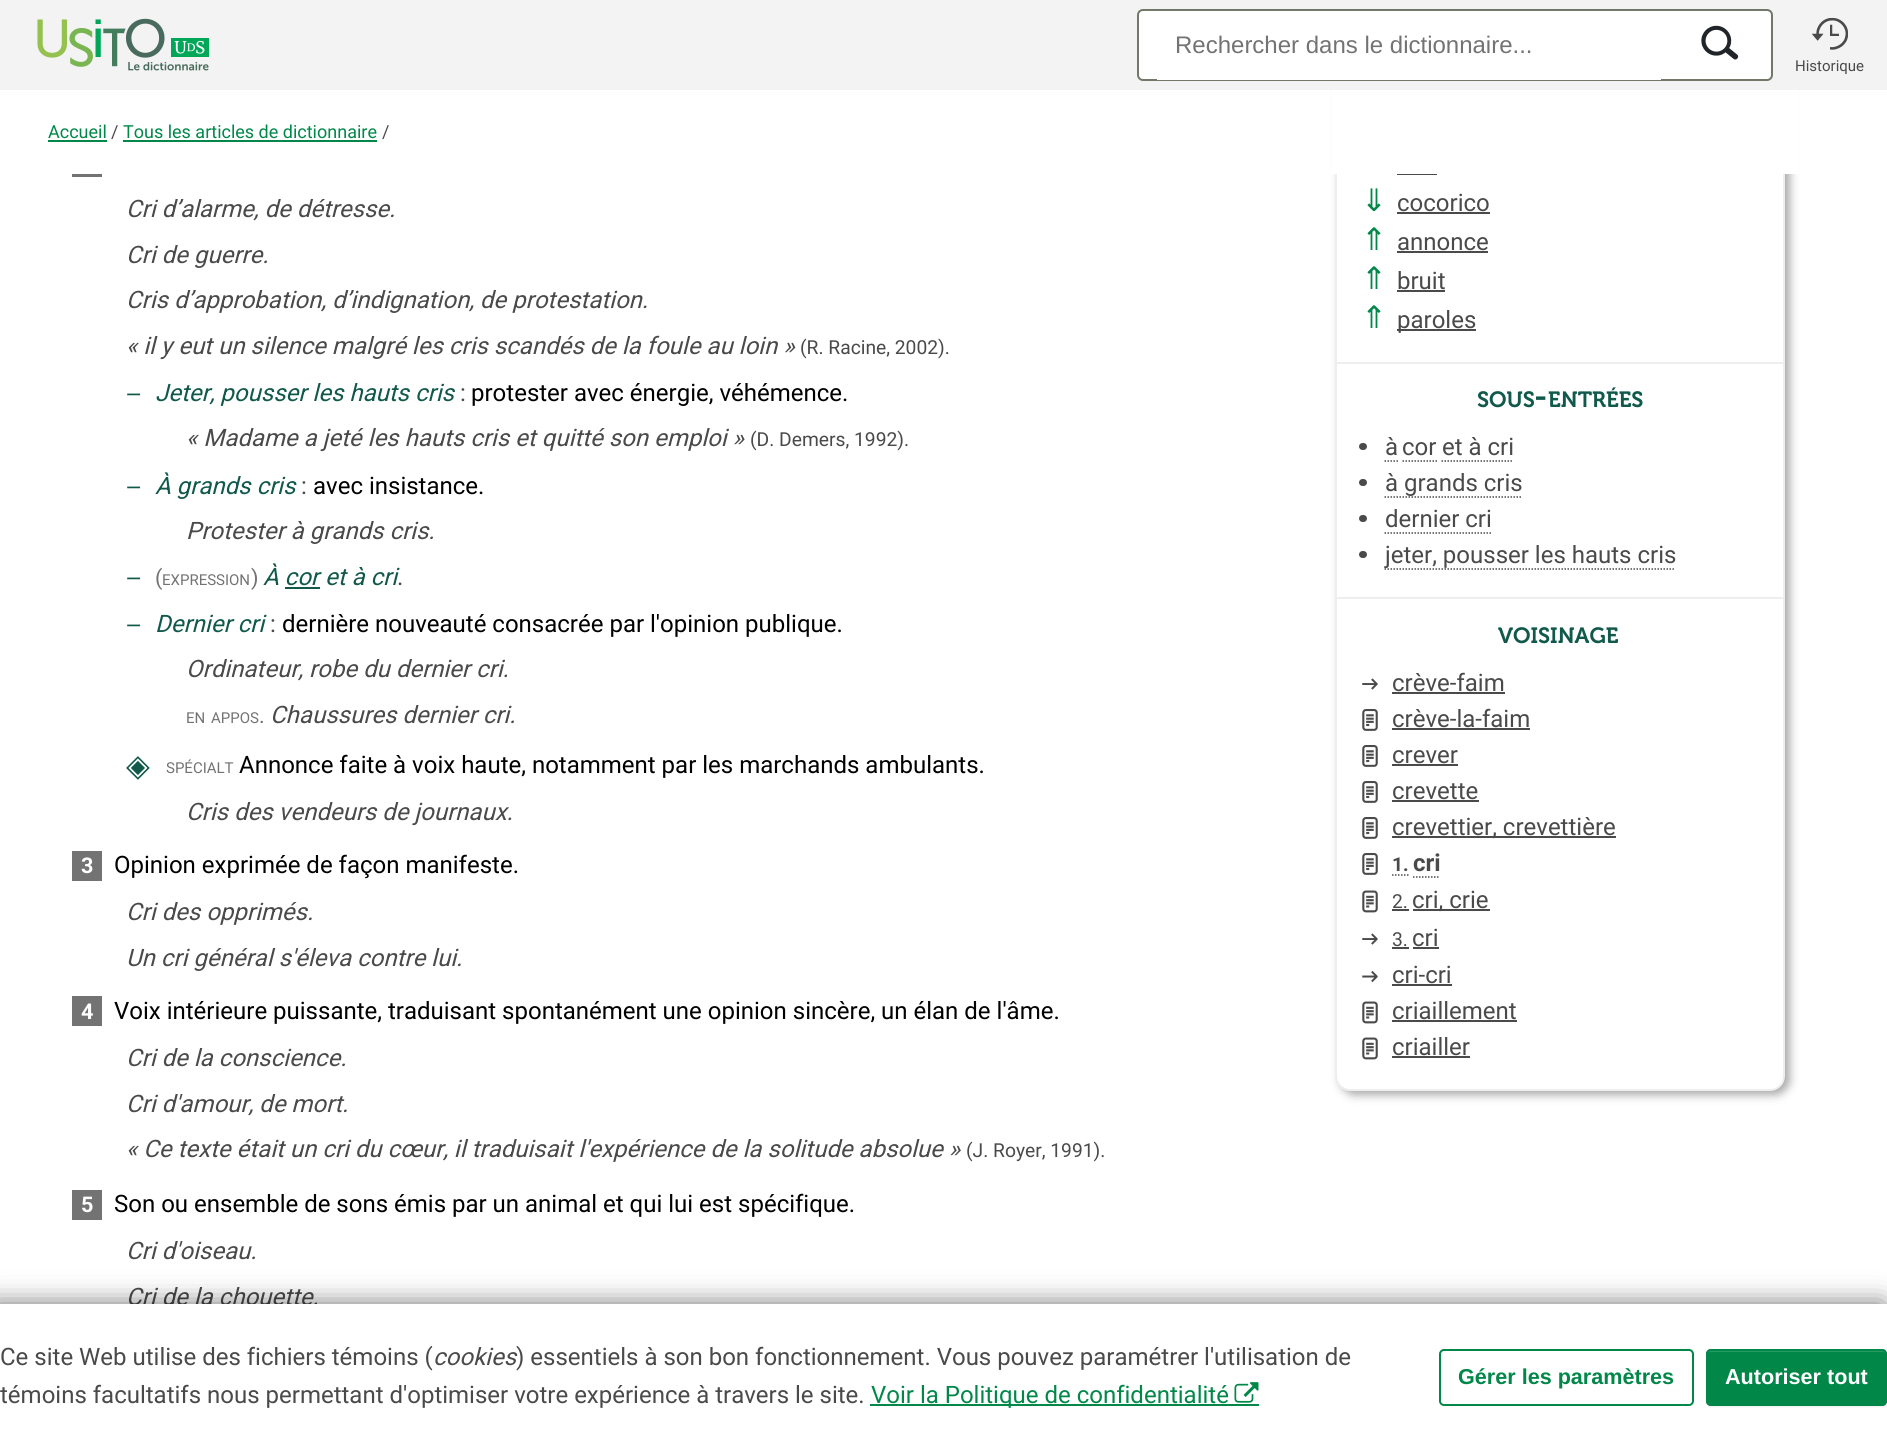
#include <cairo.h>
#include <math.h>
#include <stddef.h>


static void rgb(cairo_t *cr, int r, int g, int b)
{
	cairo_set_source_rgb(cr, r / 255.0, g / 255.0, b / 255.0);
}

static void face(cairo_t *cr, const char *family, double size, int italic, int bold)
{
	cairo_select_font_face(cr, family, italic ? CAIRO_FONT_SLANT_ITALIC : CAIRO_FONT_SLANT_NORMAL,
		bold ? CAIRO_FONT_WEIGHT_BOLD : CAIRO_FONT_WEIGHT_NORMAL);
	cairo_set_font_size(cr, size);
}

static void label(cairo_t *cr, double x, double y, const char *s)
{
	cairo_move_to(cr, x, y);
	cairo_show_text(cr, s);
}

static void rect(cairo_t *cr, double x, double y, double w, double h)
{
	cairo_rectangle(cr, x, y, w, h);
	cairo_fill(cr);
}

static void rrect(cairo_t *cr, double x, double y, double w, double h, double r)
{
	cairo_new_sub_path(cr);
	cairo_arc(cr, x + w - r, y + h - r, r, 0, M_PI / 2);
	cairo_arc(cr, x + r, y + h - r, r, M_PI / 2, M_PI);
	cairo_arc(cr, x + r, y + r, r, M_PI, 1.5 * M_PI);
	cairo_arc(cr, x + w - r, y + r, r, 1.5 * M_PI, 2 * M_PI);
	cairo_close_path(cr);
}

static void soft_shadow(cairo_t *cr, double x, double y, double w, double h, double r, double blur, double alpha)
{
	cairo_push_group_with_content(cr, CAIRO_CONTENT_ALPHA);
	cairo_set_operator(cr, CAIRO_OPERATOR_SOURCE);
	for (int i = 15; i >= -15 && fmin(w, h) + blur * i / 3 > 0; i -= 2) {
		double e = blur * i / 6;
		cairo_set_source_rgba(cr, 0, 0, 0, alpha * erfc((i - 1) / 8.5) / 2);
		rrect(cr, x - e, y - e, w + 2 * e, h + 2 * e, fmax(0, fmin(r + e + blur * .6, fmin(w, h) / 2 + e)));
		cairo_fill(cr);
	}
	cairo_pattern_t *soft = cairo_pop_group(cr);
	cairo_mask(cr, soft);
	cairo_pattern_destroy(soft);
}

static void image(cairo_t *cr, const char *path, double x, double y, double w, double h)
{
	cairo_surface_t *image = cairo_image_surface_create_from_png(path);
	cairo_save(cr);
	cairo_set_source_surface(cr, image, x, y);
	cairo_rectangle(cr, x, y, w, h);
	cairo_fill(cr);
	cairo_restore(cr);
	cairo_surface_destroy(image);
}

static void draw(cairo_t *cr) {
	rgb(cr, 255, 255, 255);
	cairo_paint(cr);
	rgb(cr, 170, 170, 170);
	soft_shadow(cr, 1340, -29, 450, 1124, 15, 4.5, 1);
	rgb(cr, 255, 255, 255);
	rrect(cr, 1336, -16, 448, 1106, 14);
	cairo_fill_preserve(cr);
	rgb(cr, 238, 238, 238);
	cairo_stroke(cr);
	rgb(cr, 243, 243, 243);
	rect(cr, 0, 0, 1887, 90);
	image(cr, "image0.png", 37, 18, 172, 53);
	rgb(cr, 255, 255, 255);
	rrect(cr, 1138, 10, 634, 70, 5);
	cairo_fill_preserve(cr);
	rgb(cr, 114, 120, 104);
	cairo_stroke(cr);
	rgb(cr, 255, 255, 255);
	rect(cr, 1157, 79, 504, 1);
	face(cr, "Liberation Sans", 24, 0, 0);
	rgb(cr, 115, 115, 115);
	label(cr, 1175, 53, "Rechercher dans le dictionnaire...");
	image(cr, "image1.png", 1701, 25, 38, 35);
	image(cr, "image2.png", 1812, 17, 36, 33);
	face(cr, "Roboto", 15, 0, 0);
	rgb(cr, 74, 74, 74);
	label(cr, 1795, 71, "Historique");
	rgb(cr, 255, 255, 255);
	rect(cr, 1332, 90, 466, 84);
	face(cr, "Roboto", 18, 0, 0);
	rgb(cr, 1, 136, 73);
	label(cr, 48, 138, "Accueil");
	rect(cr, 48, 140, 59, 2);
	rgb(cr, 74, 74, 74);
	label(cr, 111, 138, "/");
	rgb(cr, 1, 136, 73);
	label(cr, 123, 138, "Tous les articles de dictionnaire");
	rect(cr, 123, 140, 254, 2);
	rgb(cr, 74, 74, 74);
	label(cr, 382, 138, "/");
	rgb(cr, 115, 115, 115);
	rect(cr, 72, 174, 30, 3);
	face(cr, "Roboto", 24, 1, 0);
	rgb(cr, 74, 74, 74);
	label(cr, 126, 217, "Cri d’alarme, de détresse.");
	label(cr, 126, 263, "Cri de guerre.");
	label(cr, 126, 308, "Cris d’approbation, d’indignation, de protestation.");
	label(cr, 126, 354, "« il y eut un silence malgré les cris scandés de la foule au loin »");
	face(cr, "Roboto", 19.25, 0, 0);
	label(cr, 800, 354, "(R. Racine, 2002).");
	face(cr, "DejaVu Sans", 24, 0, 0);
	rgb(cr, 17, 89, 75);
	label(cr, 126, 401, "‒");
	face(cr, "Roboto", 24, 1, 0);
	label(cr, 155, 401, "Jeter, pousser les hauts cris");
	face(cr, "Roboto", 24, 0, 0);
	rgb(cr, 74, 74, 74);
	label(cr, 460, 401, ":");
	rgb(cr, 0, 0, 0);
	label(cr, 471, 401, "protester avec énergie, véhémence.");
	face(cr, "Roboto", 24, 1, 0);
	rgb(cr, 74, 74, 74);
	label(cr, 186, 446, "« Madame a jeté les hauts cris et quitté son emploi »");
	face(cr, "Roboto", 19.25, 0, 0);
	label(cr, 750, 446, "(D. Demers, 1992).");
	face(cr, "DejaVu Sans", 24, 0, 0);
	rgb(cr, 17, 89, 75);
	label(cr, 126, 494, "‒");
	face(cr, "Roboto", 24, 1, 0);
	label(cr, 155, 494, "À grands cris");
	face(cr, "Roboto", 24, 0, 0);
	rgb(cr, 74, 74, 74);
	label(cr, 301, 494, ":");
	rgb(cr, 0, 0, 0);
	label(cr, 313, 494, "avec insistance.");
	face(cr, "Roboto", 24, 1, 0);
	rgb(cr, 74, 74, 74);
	label(cr, 186, 539, "Protester à grands cris.");
	face(cr, "DejaVu Sans", 24, 0, 0);
	rgb(cr, 17, 89, 75);
	label(cr, 126, 585, "‒");
	face(cr, "Roboto", 21.6, 0, 0);
	rgb(cr, 115, 115, 115);
	label(cr, 155, 585, "(");
	face(cr, "Roboto", 15, 0, 0);
	label(cr, 162, 585, "EXPRESSION");
	face(cr, "Roboto", 21.6, 0, 0);
	label(cr, 251, 585, ")");
	face(cr, "Roboto", 24, 1, 0);
	rgb(cr, 17, 89, 75);
	label(cr, 263, 585, "À cor et à cri");
	rect(cr, 285, 587, 35, 2);
	face(cr, "Roboto", 24, 0, 0);
	rgb(cr, 74, 74, 74);
	label(cr, 397, 585, ".");
	face(cr, "DejaVu Sans", 24, 0, 0);
	rgb(cr, 17, 89, 75);
	label(cr, 126, 632, "‒");
	face(cr, "Roboto", 24, 1, 0);
	label(cr, 155, 632, "Dernier cri");
	face(cr, "Roboto", 24, 0, 0);
	rgb(cr, 74, 74, 74);
	label(cr, 270, 632, ":");
	rgb(cr, 0, 0, 0);
	label(cr, 282, 632, "dernière nouveauté consacrée par l'opinion publique.");
	face(cr, "Roboto", 24, 1, 0);
	rgb(cr, 74, 74, 74);
	label(cr, 186, 677, "Ordinateur, robe du dernier cri.");
	face(cr, "Roboto", 15, 0, 0);
	rgb(cr, 115, 115, 115);
	label(cr, 186, 723, "EN");
	label(cr, 211, 723, "APPOS");
	face(cr, "Roboto", 21.6, 0, 0);
	label(cr, 259, 723, ".");
	face(cr, "Roboto", 24, 1, 0);
	rgb(cr, 74, 74, 74);
	label(cr, 270, 723, "Chaussures dernier cri.");
	face(cr, "DejaVu Sans", 31, 0, 0);
	rgb(cr, 17, 89, 75);
	label(cr, 126, 776, "◈");
	face(cr, "Roboto", 15, 0, 0);
	rgb(cr, 115, 115, 115);
	label(cr, 166, 773, "SPÉCIALT");
	face(cr, "Roboto", 24, 0, 0);
	rgb(cr, 0, 0, 0);
	label(cr, 239, 773, "Annonce faite à voix haute, notamment par les marchands ambulants.");
	face(cr, "Roboto", 24, 1, 0);
	rgb(cr, 74, 74, 74);
	label(cr, 186, 820, "Cris des vendeurs de journaux.");
	rgb(cr, 115, 115, 115);
	rect(cr, 72, 851, 30, 30);
	face(cr, "Roboto", 21.6, 0, 1);
	rgb(cr, 255, 255, 255);
	label(cr, 81, 873, "3");
	face(cr, "Roboto", 24, 0, 0);
	rgb(cr, 0, 0, 0);
	label(cr, 114, 873, "Opinion exprimée de façon manifeste.");
	face(cr, "Roboto", 24, 1, 0);
	rgb(cr, 74, 74, 74);
	label(cr, 126, 920, "Cri des opprimés.");
	label(cr, 126, 966, "Un cri général s'éleva contre lui.");
	rgb(cr, 115, 115, 115);
	rect(cr, 72, 996, 30, 30);
	face(cr, "Roboto", 21.6, 0, 1);
	rgb(cr, 255, 255, 255);
	label(cr, 81, 1019, "4");
	face(cr, "Roboto", 24, 0, 0);
	rgb(cr, 0, 0, 0);
	label(cr, 114, 1019, "Voix intérieure puissante, traduisant spontanément une opinion sincère, un élan de l'âme.");
	face(cr, "Roboto", 24, 1, 0);
	rgb(cr, 74, 74, 74);
	label(cr, 126, 1066, "Cri de la conscience.");
	label(cr, 126, 1112, "Cri d'amour, de mort.");
	label(cr, 126, 1157, "« Ce texte était un cri du cœur, il traduisait l'expérience de la solitude absolue »");
	face(cr, "Roboto", 19.25, 0, 0);
	label(cr, 966, 1157, "(J. Royer, 1991).");
	rgb(cr, 115, 115, 115);
	rect(cr, 72, 1190, 30, 30);
	face(cr, "Roboto", 21.6, 0, 1);
	rgb(cr, 255, 255, 255);
	label(cr, 81, 1212, "5");
	face(cr, "Roboto", 24, 0, 0);
	rgb(cr, 0, 0, 0);
	label(cr, 114, 1212, "Son ou ensemble de sons émis par un animal et qui lui est spécifique.");
	face(cr, "Roboto", 24, 1, 0);
	rgb(cr, 74, 74, 74);
	label(cr, 126, 1259, "Cri d'oiseau.");
	label(cr, 126, 1305, "Cri de la chouette.");
	rect(cr, 1397, 174, 40, 1);
	face(cr, "DejaVu Sans", 31, 0, 0);
	rgb(cr, 1, 136, 73);
	label(cr, 1361, 211, "⇓");
	face(cr, "Roboto", 24, 0, 0);
	rgb(cr, 74, 74, 74);
	label(cr, 1397, 211, "cocorico");
	rect(cr, 1397, 212, 93, 2);
	face(cr, "DejaVu Sans", 31, 0, 0);
	rgb(cr, 1, 136, 73);
	label(cr, 1361, 250, "⇑");
	face(cr, "Roboto", 24, 0, 0);
	rgb(cr, 74, 74, 74);
	label(cr, 1397, 250, "annonce");
	rect(cr, 1397, 251, 91, 2);
	face(cr, "DejaVu Sans", 31, 0, 0);
	rgb(cr, 1, 136, 73);
	label(cr, 1361, 289, "⇑");
	face(cr, "Roboto", 24, 0, 0);
	rgb(cr, 74, 74, 74);
	label(cr, 1397, 289, "bruit");
	rect(cr, 1397, 290, 48, 2);
	face(cr, "DejaVu Sans", 31, 0, 0);
	rgb(cr, 1, 136, 73);
	label(cr, 1361, 328, "⇑");
	rgb(cr, 74, 74, 74);
	rect(cr, 1397, 329, 79, 2);
	face(cr, "Roboto", 24, 0, 0);
	label(cr, 1397, 328, "paroles");
	rgb(cr, 238, 238, 238);
	rect(cr, 1337, 362, 447, 2);
	face(cr, "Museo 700 SemiBold", 22, 0, 0);
	rgb(cr, 17, 89, 75);
	label(cr, 1477, 407, "SOUS");
	face(cr, "Museo 700 SemiBold", 31, 0, 0);
	label(cr, 1534, 407, "-");
	face(cr, "Museo 700 SemiBold", 22, 0, 0);
	label(cr, 1548, 407, "ENTRÉES");
	rgb(cr, 74, 74, 74);
	rrect(cr, 1359, 443, 8, 7, 3.5);
	cairo_fill(cr);
	face(cr, "Roboto", 24, 0, 0);
	label(cr, 1385, 455, "à");
	label(cr, 1402, 455, "cor");
	cairo_new_path(cr);
	cairo_move_to(cr, 1384.5, 461);
	cairo_line_to(cr, 1398, 461);
	cairo_move_to(cr, 1402.5, 461);
	cairo_line_to(cr, 1437, 461);
	cairo_set_line_width(cr, 1.5);
	cairo_set_dash(cr, (double[]){1.5, 1.5}, 2, 0);
	cairo_stroke(cr);
	cairo_new_path(cr);
	cairo_move_to(cr, 1441.5, 461);
	cairo_line_to(cr, 1513.5, 461);
	cairo_stroke(cr);
	label(cr, 1442, 455, "et à cri");
	rrect(cr, 1359, 479, 8, 7, 3.5);
	cairo_fill(cr);
	label(cr, 1385, 491, "à grands cris");
	cairo_new_path(cr);
	cairo_move_to(cr, 1384.5, 497);
	cairo_line_to(cr, 1522.5, 497);
	cairo_stroke(cr);
	rrect(cr, 1359, 515, 8, 7, 3.5);
	cairo_fill(cr);
	label(cr, 1385, 527, "dernier cri");
	cairo_new_path(cr);
	cairo_move_to(cr, 1384.5, 533);
	cairo_line_to(cr, 1491, 533);
	cairo_stroke(cr);
	rrect(cr, 1359, 551, 8, 7, 3.5);
	cairo_fill(cr);
	cairo_new_path(cr);
	cairo_move_to(cr, 1384.5, 569);
	cairo_line_to(cr, 1675.5, 569);
	cairo_stroke(cr);
	label(cr, 1385, 563, "jeter, pousser les hauts cris");
	rgb(cr, 238, 238, 238);
	rect(cr, 1337, 597, 447, 2);
	face(cr, "Museo 700 SemiBold", 22, 0, 0);
	rgb(cr, 17, 89, 75);
	label(cr, 1498, 643, "VOISINAGE");
	image(cr, "image3.png", 1362, 678, 16, 12);
	face(cr, "Roboto", 24, 0, 0);
	rgb(cr, 74, 74, 74);
	label(cr, 1392, 691, "crève-faim");
	rect(cr, 1392, 692, 113, 2);
	image(cr, "image4.png", 1362, 709, 16, 22);
	label(cr, 1392, 727, "crève-la-faim");
	rect(cr, 1392, 728, 138, 2);
	image(cr, "image4.png", 1362, 745, 16, 22);
	label(cr, 1392, 763, "crever");
	rect(cr, 1392, 764, 66, 2);
	image(cr, "image4.png", 1362, 781, 16, 22);
	label(cr, 1392, 799, "crevette");
	rect(cr, 1392, 800, 87, 2);
	image(cr, "image4.png", 1362, 817, 16, 22);
	rect(cr, 1392, 836, 224, 2);
	label(cr, 1392, 835, "crevettier, crevettière");
	image(cr, "image4.png", 1362, 853, 16, 22);
	face(cr, "Roboto", 19.25, 0, 1);
	label(cr, 1392, 871, "1.");
	cairo_new_path(cr);
	cairo_move_to(cr, 1392, 875);
	cairo_line_to(cr, 1408.5, 875);
	cairo_move_to(cr, 1413, 877);
	cairo_line_to(cr, 1440, 877);
	cairo_stroke(cr);
	face(cr, "Roboto", 24, 0, 1);
	label(cr, 1413, 871, "cri");
	image(cr, "image5.png", 1362, 890, 16, 23);
	face(cr, "Roboto", 19.25, 0, 0);
	label(cr, 1392, 908, "2.");
	rect(cr, 1392, 909, 17, 2);
	rect(cr, 1413, 909, 77, 2);
	face(cr, "Roboto", 24, 0, 0);
	label(cr, 1412, 908, "cri, crie");
	image(cr, "image3.png", 1362, 933, 16, 12);
	face(cr, "Roboto", 19.25, 0, 0);
	label(cr, 1392, 946, "3.");
	rect(cr, 1392, 947, 17, 2);
	face(cr, "Roboto", 24, 0, 0);
	label(cr, 1412, 946, "cri");
	rect(cr, 1413, 947, 26, 2);
	image(cr, "image6.png", 1362, 971, 16, 12);
	label(cr, 1392, 983, "cri-cri");
	rect(cr, 1392, 984, 60, 2);
	image(cr, "image5.png", 1362, 1001, 16, 23);
	label(cr, 1392, 1019, "criaillement");
	rect(cr, 1392, 1020, 125, 2);
	image(cr, "image5.png", 1362, 1037, 16, 23);
	label(cr, 1392, 1055, "criailler");
	rect(cr, 1392, 1056, 78, 2);
	rgb(cr, 0, 0, 0);
	soft_shadow(cr, -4, 1304, 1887, 145, 0, 13.5, 0.55);
	rgb(cr, 255, 255, 255);
	rect(cr, 0, 1304, 1887, 145);
	rgb(cr, 74, 74, 74);
	label(cr, 0, 1365, "Ce site Web utilise des fichiers témoins (");
	face(cr, "Roboto", 24, 1, 0);
	label(cr, 433, 1365, "cookies");
	face(cr, "Roboto", 24, 0, 0);
	label(cr, 516, 1365, ") essentiels à son bon fonctionnement. Vous pouvez paramétrer l'utilisation de");
	label(cr, 0, 1403, "témoins facultatifs nous permettant d'optimiser votre expérience à travers le site.");
	rgb(cr, 1, 136, 73);
	rect(cr, 870, 1404, 389, 2);
	label(cr, 871, 1403, "Voir la Politique de confidentialité");
	image(cr, "image7.png", 1234, 1382, 25, 21);
	rrect(cr, 1440, 1350, 253, 55, 4);
	cairo_set_line_width(cr, 2);
	cairo_set_dash(cr, NULL, 0, 0);
	cairo_stroke(cr);
	face(cr, "Liberation Sans", 21.6, 0, 1);
	label(cr, 1458, 1384, "Gérer les paramètres");
	rgb(cr, 0, 0, 0);
	soft_shadow(cr, 1706, 1350, 181, 57, 5, 1, 0.07);
	rgb(cr, 1, 136, 73);
	rrect(cr, 1706, 1349, 181, 57, 5);
	cairo_fill(cr);
	rgb(cr, 39, 154, 100);
	cairo_new_path(cr);
	cairo_move_to(cr, 1710, 1352);
	cairo_line_to(cr, 1882, 1352);
	cairo_curve_to(cr, 1884, 1352, 1886, 1353, 1886, 1355);
	cairo_line_to(cr, 1886, 1353);
	cairo_curve_to(cr, 1886, 1351, 1885, 1350, 1883, 1350);
	cairo_line_to(cr, 1710, 1350);
	cairo_curve_to(cr, 1708, 1350, 1707, 1351, 1707, 1353);
	cairo_line_to(cr, 1707, 1355);
	cairo_curve_to(cr, 1707, 1353, 1708, 1352, 1710, 1352);
	cairo_close_path(cr);
	cairo_fill(cr);
	rrect(cr, 1707, 1350, 179, 55, 4);
	rgb(cr, 1, 136, 73);
	cairo_stroke(cr);
	rgb(cr, 255, 255, 255);
	label(cr, 1725, 1384, "Autoriser tout");
}

int main(void) {
	cairo_surface_t *surface = cairo_image_surface_create(CAIRO_FORMAT_RGB24, 1887, 1449);
	cairo_t *cr = cairo_create(surface);
	cairo_font_options_t *options = cairo_font_options_create();
	cairo_font_options_set_hint_metrics(options, CAIRO_HINT_METRICS_OFF);
	cairo_font_options_set_hint_style(options, CAIRO_HINT_STYLE_NONE);
	cairo_set_font_options(cr, options);
	cairo_set_miter_limit(cr, 4);
	draw(cr);
	cairo_surface_write_to_png(surface, "render.png");
	cairo_font_options_destroy(options);
	cairo_destroy(cr);
	cairo_surface_destroy(surface);
	return 0;
}
